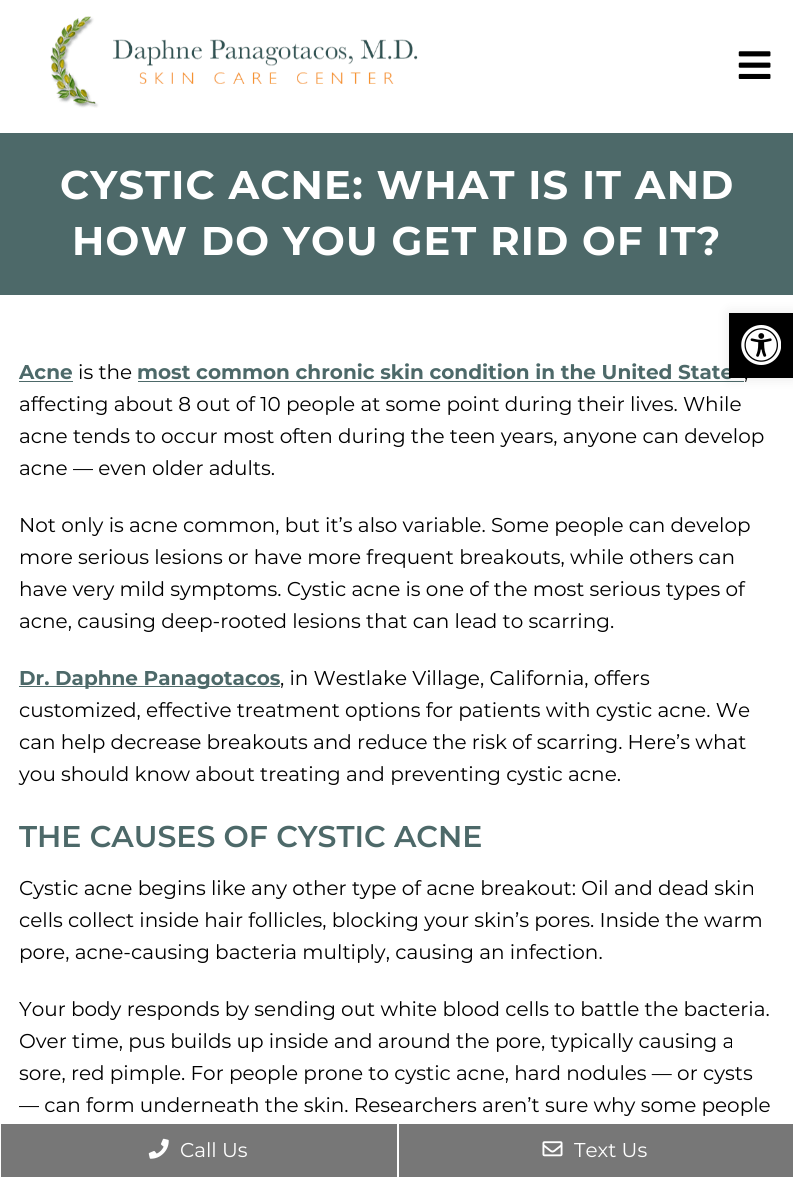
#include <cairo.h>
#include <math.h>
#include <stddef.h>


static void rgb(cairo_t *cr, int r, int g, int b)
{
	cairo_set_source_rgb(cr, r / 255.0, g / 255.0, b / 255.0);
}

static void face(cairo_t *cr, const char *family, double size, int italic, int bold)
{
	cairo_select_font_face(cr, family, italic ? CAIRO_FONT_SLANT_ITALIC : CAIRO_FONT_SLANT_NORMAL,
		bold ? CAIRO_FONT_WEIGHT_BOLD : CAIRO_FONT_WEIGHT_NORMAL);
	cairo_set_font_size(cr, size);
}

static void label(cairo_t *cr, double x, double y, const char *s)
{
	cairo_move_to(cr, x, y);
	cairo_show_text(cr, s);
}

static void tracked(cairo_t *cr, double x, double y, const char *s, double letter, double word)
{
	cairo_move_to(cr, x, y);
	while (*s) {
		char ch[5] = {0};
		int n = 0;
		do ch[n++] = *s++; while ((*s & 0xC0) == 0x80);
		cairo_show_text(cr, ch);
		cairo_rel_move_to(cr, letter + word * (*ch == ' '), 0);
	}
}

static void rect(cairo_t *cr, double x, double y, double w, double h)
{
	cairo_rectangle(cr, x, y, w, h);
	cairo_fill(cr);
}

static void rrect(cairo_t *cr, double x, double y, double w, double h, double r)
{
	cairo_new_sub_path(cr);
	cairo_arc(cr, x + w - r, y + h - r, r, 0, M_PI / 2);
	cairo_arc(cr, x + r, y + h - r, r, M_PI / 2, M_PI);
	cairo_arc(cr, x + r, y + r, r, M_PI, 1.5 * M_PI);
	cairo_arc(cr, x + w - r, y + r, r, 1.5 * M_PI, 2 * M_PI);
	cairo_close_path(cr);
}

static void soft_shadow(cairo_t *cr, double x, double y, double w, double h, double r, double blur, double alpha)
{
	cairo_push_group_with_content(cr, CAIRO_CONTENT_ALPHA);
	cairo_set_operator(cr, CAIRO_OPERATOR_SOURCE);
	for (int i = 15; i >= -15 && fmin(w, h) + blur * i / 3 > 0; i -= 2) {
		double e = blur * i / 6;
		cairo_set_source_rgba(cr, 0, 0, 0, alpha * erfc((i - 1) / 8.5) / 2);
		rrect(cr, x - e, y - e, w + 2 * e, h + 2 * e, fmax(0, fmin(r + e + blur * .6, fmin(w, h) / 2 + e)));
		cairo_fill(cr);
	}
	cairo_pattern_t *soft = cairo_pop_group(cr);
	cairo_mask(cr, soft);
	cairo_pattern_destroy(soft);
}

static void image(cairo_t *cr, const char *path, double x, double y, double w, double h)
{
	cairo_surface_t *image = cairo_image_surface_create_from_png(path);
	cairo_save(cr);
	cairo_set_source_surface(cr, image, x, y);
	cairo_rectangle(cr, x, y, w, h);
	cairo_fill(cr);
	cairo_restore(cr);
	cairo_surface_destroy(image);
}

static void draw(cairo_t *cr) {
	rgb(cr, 255, 255, 255);
	cairo_paint(cr);
	image(cr, "image0.png", 50, 16, 368, 92);
	image(cr, "image1.png", 738, 51, 33, 28);
	rgb(cr, 77, 105, 105);
	rect(cr, 0, 133, 793, 162);
	face(cr, "Montserrat", 40, 0, 1);
	rgb(cr, 255, 255, 255);
	tracked(cr, 60, 199, "CYSTIC ACNE: WHAT IS IT AND", 1.25, 0);
	tracked(cr, 72, 255, "HOW DO YOU GET RID OF IT?", 1.25, 0);
	face(cr, "Montserrat", 20, 0, 1);
	rgb(cr, 77, 105, 105);
	label(cr, 19, 379, "Acne");
	rect(cr, 19, 381, 54, 1);
	face(cr, "Montserrat", 20, 0, 0);
	rgb(cr, 0, 0, 0);
	label(cr, 78, 379, "is the");
	face(cr, "Montserrat", 20, 0, 1);
	rgb(cr, 77, 105, 105);
	label(cr, 137, 379, "most common chronic skin condition in the United State");
	rect(cr, 138, 381, 606, 1);
	face(cr, "Montserrat", 20, 0, 0);
	rgb(cr, 0, 0, 0);
	label(cr, 744, 379, ",");
	label(cr, 19, 411, "affecting about 8 out of 10 people at some point during their lives. While");
	label(cr, 19, 443, "acne tends to occur most often during the teen years, anyone can develop");
	label(cr, 19, 475, "acne — even older adults.");
	label(cr, 19, 532, "Not only is acne common, but it’s also variable. Some people can develop");
	label(cr, 19, 564, "more serious lesions or have more frequent breakouts, while others can");
	label(cr, 19, 596, "have very mild symptoms. Cystic acne is one of the most serious types of");
	label(cr, 19, 628, "acne, causing deep-rooted lesions that can lead to scarring.");
	rgb(cr, 77, 105, 105);
	rect(cr, 19, 686, 261, 1);
	face(cr, "Montserrat", 20, 0, 1);
	label(cr, 19, 685, "Dr. Daphne Panagotacos");
	face(cr, "Montserrat", 20, 0, 0);
	rgb(cr, 0, 0, 0);
	label(cr, 280, 685, ", in Westlake Village, California, offers");
	label(cr, 19, 717, "customized, effective treatment options for patients with cystic acne. We");
	label(cr, 19, 749, "can help decrease breakouts and reduce the risk of scarring. Here’s what");
	label(cr, 19, 781, "you should know about treating and preventing cystic acne.");
	face(cr, "Montserrat SemiBold", 30, 0, 0);
	rgb(cr, 77, 105, 105);
	label(cr, 19, 847, "THE CAUSES OF CYSTIC ACNE");
	face(cr, "Montserrat", 20, 0, 0);
	rgb(cr, 0, 0, 0);
	label(cr, 19, 895, "Cystic acne begins like any other type of acne breakout: Oil and dead skin");
	label(cr, 19, 927, "cells collect inside hair follicles, blocking your skin’s pores. Inside the warm");
	label(cr, 19, 959, "pore, acne-causing bacteria multiply, causing an infection.");
	label(cr, 19, 1016, "Your body responds by sending out white blood cells to battle the bacteria.");
	label(cr, 19, 1048, "Over time, pus builds up inside and around the pore, typically causing a");
	label(cr, 19, 1080, "sore, red pimple. For people prone to cystic acne, hard nodules — or cysts");
	label(cr, 19, 1112, "— can form underneath the skin. Researchers aren’t sure why some people");
	rgb(cr, 0, 0, 0);
	soft_shadow(cr, 729, 313, 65, 65, 0, 6, 0.1);
	rgb(cr, 0, 0, 0);
	rect(cr, 729, 313, 64, 65);
	image(cr, "image2.png", 741, 325, 40, 40);
	rgb(cr, 119, 119, 119);
	rect(cr, 1, 1124, 396, 53);
	image(cr, "image3.png", 148, 1138, 21, 21);
	rgb(cr, 255, 255, 255);
	label(cr, 180, 1157, "Call Us");
	rgb(cr, 119, 119, 119);
	rect(cr, 399, 1124, 394, 53);
	image(cr, "image4.png", 542, 1141, 21, 16);
	rgb(cr, 255, 255, 255);
	label(cr, 574, 1157, "Text Us");
}

int main(void) {
	cairo_surface_t *surface = cairo_image_surface_create(CAIRO_FORMAT_RGB24, 793, 1177);
	cairo_t *cr = cairo_create(surface);
	cairo_font_options_t *options = cairo_font_options_create();
	cairo_font_options_set_hint_metrics(options, CAIRO_HINT_METRICS_OFF);
	cairo_font_options_set_hint_style(options, CAIRO_HINT_STYLE_NONE);
	cairo_set_font_options(cr, options);
	cairo_set_miter_limit(cr, 4);
	draw(cr);
	cairo_surface_write_to_png(surface, "render.png");
	cairo_font_options_destroy(options);
	cairo_destroy(cr);
	cairo_surface_destroy(surface);
	return 0;
}
